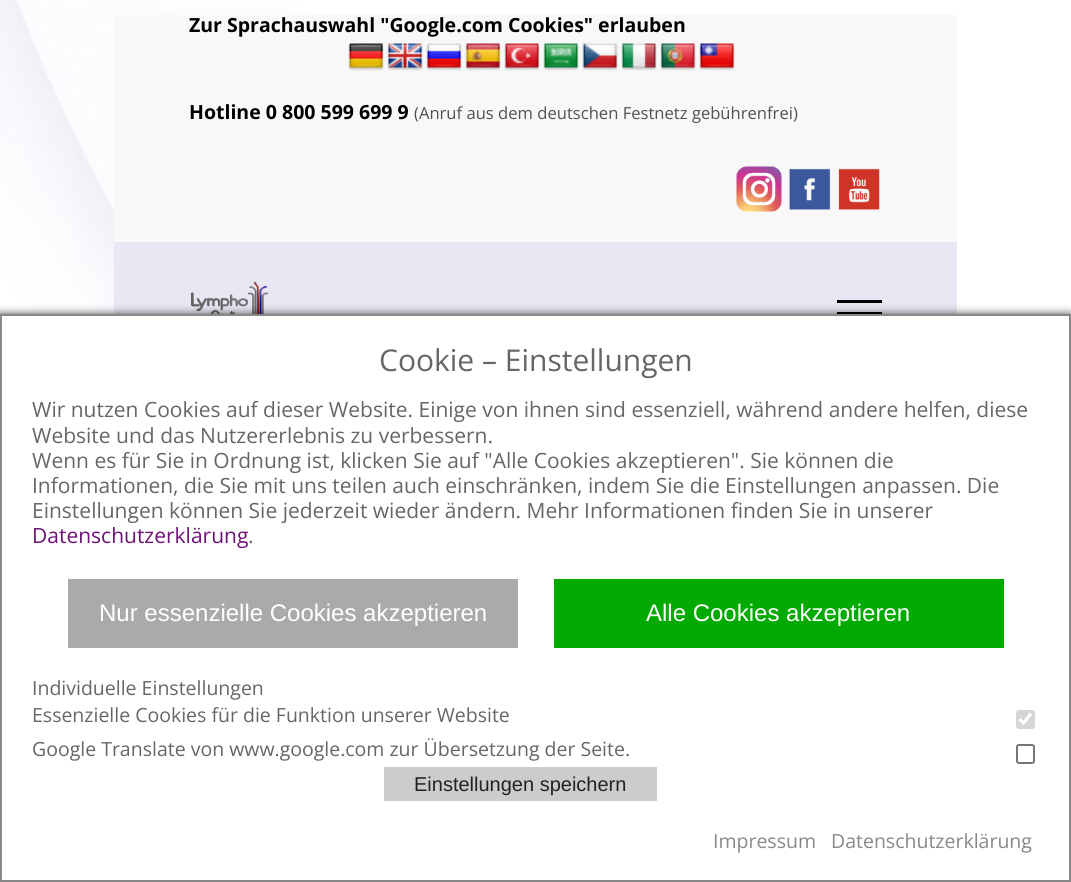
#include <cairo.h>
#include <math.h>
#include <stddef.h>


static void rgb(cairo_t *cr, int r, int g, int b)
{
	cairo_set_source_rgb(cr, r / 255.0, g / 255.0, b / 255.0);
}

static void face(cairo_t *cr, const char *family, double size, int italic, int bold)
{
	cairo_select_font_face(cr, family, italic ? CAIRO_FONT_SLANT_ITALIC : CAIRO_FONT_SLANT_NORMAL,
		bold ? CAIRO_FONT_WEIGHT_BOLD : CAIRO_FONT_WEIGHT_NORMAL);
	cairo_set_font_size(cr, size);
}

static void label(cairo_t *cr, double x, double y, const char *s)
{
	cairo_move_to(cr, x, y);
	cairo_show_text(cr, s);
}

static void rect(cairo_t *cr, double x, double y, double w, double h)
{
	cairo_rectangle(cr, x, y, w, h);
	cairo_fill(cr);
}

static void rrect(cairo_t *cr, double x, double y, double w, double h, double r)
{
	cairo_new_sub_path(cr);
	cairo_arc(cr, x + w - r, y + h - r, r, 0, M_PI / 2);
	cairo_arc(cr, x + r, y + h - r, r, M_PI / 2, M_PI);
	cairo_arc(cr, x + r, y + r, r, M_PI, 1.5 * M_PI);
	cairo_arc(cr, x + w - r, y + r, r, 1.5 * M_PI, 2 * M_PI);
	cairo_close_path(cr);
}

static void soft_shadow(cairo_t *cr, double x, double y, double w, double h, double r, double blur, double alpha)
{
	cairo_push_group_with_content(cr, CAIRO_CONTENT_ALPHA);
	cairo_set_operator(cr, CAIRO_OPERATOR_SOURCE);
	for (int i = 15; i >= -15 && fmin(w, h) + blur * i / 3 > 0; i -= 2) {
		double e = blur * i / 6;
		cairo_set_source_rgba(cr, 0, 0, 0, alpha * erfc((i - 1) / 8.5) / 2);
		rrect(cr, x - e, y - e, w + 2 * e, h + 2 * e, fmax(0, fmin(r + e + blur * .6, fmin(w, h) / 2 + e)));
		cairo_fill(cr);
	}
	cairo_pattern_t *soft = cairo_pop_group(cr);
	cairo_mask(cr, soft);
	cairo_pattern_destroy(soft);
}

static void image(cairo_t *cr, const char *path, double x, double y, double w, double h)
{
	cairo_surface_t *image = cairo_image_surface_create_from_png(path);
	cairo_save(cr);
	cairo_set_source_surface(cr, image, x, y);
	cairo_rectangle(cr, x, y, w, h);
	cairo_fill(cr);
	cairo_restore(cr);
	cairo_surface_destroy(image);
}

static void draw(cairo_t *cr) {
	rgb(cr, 255, 255, 255);
	cairo_paint(cr);
	image(cr, "image0.png", 0, 0, 1071, 314);
	rgb(cr, 248, 248, 248);
	rect(cr, 114, 15, 843, 227);
	face(cr, "Open Sans", 19.5, 0, 1);
	rgb(cr, 0, 0, 0);
	label(cr, 189, 32, "Zur Sprachauswahl \"Google.com Cookies\" erlauben");
	image(cr, "image1.png", 348, 43, 36, 28);
	image(cr, "image2.png", 387, 43, 36, 28);
	image(cr, "image3.png", 426, 43, 36, 28);
	image(cr, "image4.png", 465, 43, 36, 28);
	image(cr, "image5.png", 504, 43, 36, 28);
	image(cr, "image6.png", 543, 43, 36, 28);
	image(cr, "image7.png", 582, 43, 36, 28);
	image(cr, "image8.png", 621, 43, 36, 28);
	image(cr, "image9.png", 660, 43, 36, 28);
	image(cr, "image10.png", 699, 43, 36, 28);
	label(cr, 189, 119, "Hotline 0 800 599 699 9");
	face(cr, "Open Sans", 16.6, 0, 0);
	rgb(cr, 81, 81, 81);
	label(cr, 414, 119, "(Anruf aus dem deutschen Festnetz gebührenfrei)");
	image(cr, "image11.png", 736, 166, 46, 46);
	image(cr, "image12.png", 789, 168, 42, 42);
	image(cr, "image13.png", 838, 168, 42, 42);
	rgb(cr, 233, 231, 244);
	rect(cr, 114, 242, 843, 72);
	image(cr, "image14.png", 191, 281, 78, 33);
	rgb(cr, 0, 0, 0);
	rect(cr, 837, 300, 45, 3);
	rect(cr, 837, 312, 45, 2);
	rgb(cr, 0, 0, 0);
	soft_shadow(cr, 0, 314, 1071, 568, 0, 4.5, 0.7);
	rgb(cr, 255, 255, 255);
	cairo_rectangle(cr, 1, 315, 1069, 566);
	cairo_fill_preserve(cr);
	rgb(cr, 136, 136, 136);
	cairo_stroke(cr);
	face(cr, "Open Sans", 30, 0, 0);
	rgb(cr, 102, 102, 102);
	label(cr, 379, 371, "Cookie – Einstellungen");
	face(cr, "Open Sans", 21, 0, 0);
	label(cr, 32, 417, "Wir nutzen Cookies auf dieser Website. Einige von ihnen sind essenziell, während andere helfen, diese");
	label(cr, 32, 443, "Website und das Nutzererlebnis zu verbessern.");
	label(cr, 32, 468, "Wenn es für Sie in Ordnung ist, klicken Sie auf \"Alle Cookies akzeptieren\". Sie können die");
	label(cr, 32, 493, "Informationen, die Sie mit uns teilen auch einschränken, indem Sie die Einstellungen anpassen. Die");
	label(cr, 32, 518, "Einstellungen können Sie jederzeit wieder ändern. Mehr Informationen finden Sie in unserer");
	rgb(cr, 109, 19, 117);
	label(cr, 32, 543, "Datenschutzerklärung");
	rgb(cr, 102, 102, 102);
	label(cr, 248, 543, ".");
	rgb(cr, 170, 170, 170);
	rect(cr, 68, 579, 450, 69);
	face(cr, "Liberation Sans", 24, 0, 0);
	rgb(cr, 255, 255, 255);
	label(cr, 99, 621, "Nur essenzielle Cookies akzeptieren");
	rgb(cr, 0, 170, 0);
	rect(cr, 554, 579, 450, 69);
	rgb(cr, 255, 255, 255);
	label(cr, 646, 621, "Alle Cookies akzeptieren");
	face(cr, "Open Sans", 19.5, 0, 0);
	rgb(cr, 102, 102, 102);
	label(cr, 32, 695, "Individuelle Einstellungen");
	label(cr, 32, 722, "Essenzielle Cookies für die Funktion unserer Website");
	rgb(cr, 214, 214, 214);
	rrect(cr, 1016, 710, 19, 19, 3);
	cairo_fill(cr);
	cairo_new_path(cr);
	cairo_move_to(cr, 1019.5, 719);
	cairo_line_to(cr, 1023.5, 723);
	cairo_line_to(cr, 1031, 713.5);
	rgb(cr, 255, 255, 255);
	cairo_set_line_width(cr, 3.1);
	cairo_stroke(cr);
	rgb(cr, 102, 102, 102);
	label(cr, 32, 756, "Google Translate von www.google.com zur Übersetzung der Seite.");
	rrect(cr, 1017, 745, 17, 18, 2);
	rgb(cr, 118, 118, 118);
	cairo_set_line_width(cr, 2);
	cairo_stroke(cr);
	rgb(cr, 204, 204, 204);
	rect(cr, 384, 767, 273, 34);
	face(cr, "Liberation Sans", 20, 0, 0);
	rgb(cr, 34, 34, 34);
	label(cr, 414, 791, "Einstellungen speichern");
	face(cr, "Open Sans", 19.5, 0, 0);
	rgb(cr, 136, 136, 136);
	label(cr, 713, 848, "Impressum");
	label(cr, 831, 848, "Datenschutzerklärung");
}

int main(void) {
	cairo_surface_t *surface = cairo_image_surface_create(CAIRO_FORMAT_RGB24, 1071, 882);
	cairo_t *cr = cairo_create(surface);
	cairo_font_options_t *options = cairo_font_options_create();
	cairo_font_options_set_hint_metrics(options, CAIRO_HINT_METRICS_OFF);
	cairo_font_options_set_hint_style(options, CAIRO_HINT_STYLE_NONE);
	cairo_set_font_options(cr, options);
	cairo_set_miter_limit(cr, 4);
	draw(cr);
	cairo_surface_write_to_png(surface, "render.png");
	cairo_font_options_destroy(options);
	cairo_destroy(cr);
	cairo_surface_destroy(surface);
	return 0;
}
